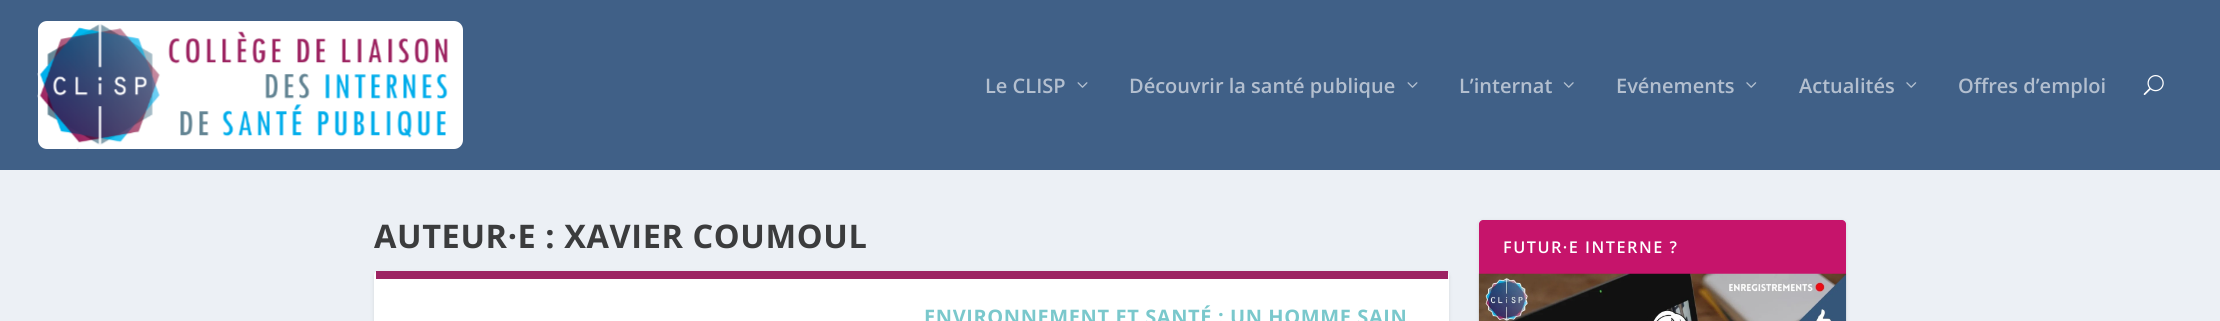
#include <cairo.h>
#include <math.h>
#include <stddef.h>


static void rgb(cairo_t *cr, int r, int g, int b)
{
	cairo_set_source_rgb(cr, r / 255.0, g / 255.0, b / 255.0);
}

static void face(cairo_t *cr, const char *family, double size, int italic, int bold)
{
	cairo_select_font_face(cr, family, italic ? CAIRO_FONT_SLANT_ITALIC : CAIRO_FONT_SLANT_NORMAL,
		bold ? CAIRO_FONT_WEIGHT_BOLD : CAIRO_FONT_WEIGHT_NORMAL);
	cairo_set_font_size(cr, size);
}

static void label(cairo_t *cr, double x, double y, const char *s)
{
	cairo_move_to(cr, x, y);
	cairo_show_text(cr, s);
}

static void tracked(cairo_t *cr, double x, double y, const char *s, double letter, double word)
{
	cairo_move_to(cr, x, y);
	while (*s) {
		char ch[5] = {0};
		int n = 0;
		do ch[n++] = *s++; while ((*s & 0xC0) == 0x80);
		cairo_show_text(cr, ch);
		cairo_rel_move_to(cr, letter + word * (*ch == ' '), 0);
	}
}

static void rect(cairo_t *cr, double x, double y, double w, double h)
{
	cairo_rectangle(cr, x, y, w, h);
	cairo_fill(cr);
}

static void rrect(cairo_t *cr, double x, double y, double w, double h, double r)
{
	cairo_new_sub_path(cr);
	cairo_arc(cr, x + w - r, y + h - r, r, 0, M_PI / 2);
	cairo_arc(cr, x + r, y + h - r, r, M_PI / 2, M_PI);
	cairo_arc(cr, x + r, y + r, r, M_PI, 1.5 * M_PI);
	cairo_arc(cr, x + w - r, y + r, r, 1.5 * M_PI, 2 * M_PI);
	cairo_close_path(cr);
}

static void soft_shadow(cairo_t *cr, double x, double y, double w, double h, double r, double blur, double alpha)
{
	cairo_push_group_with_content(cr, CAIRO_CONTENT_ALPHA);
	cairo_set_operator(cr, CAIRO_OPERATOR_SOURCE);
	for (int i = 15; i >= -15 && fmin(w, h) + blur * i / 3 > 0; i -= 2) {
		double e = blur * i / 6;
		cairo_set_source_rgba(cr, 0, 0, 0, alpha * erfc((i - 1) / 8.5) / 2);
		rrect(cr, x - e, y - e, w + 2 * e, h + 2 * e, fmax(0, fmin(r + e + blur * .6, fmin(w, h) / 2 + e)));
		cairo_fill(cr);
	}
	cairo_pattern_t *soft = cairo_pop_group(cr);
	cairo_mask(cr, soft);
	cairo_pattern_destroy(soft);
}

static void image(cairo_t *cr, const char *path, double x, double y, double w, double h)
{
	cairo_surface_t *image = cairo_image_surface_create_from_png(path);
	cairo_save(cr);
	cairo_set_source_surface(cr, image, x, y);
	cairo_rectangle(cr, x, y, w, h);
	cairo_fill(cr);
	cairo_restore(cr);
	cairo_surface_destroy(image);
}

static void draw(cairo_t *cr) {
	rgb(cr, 236, 240, 245);
	cairo_paint(cr);
	rgb(cr, 64, 96, 135);
	rect(cr, 0, 0, 2220, 170);
	rgb(cr, 255, 255, 255);
	rrect(cr, 38, 21, 425, 128, 9);
	cairo_fill(cr);
	image(cr, "image0.png", 37, 24, 411, 125);
	face(cr, "Open Sans SemiBold", 20, 0, 0);
	rgb(cr, 179, 191, 207);
	label(cr, 985, 93, "Le CLISP");
	image(cr, "image1.png", 1077, 82, 11, 6);
	label(cr, 1129, 93, "Découvrir la santé publique");
	image(cr, "image1.png", 1407, 82, 11, 6);
	label(cr, 1459, 93, "L’internat");
	image(cr, "image2.png", 1563, 82, 11, 6);
	label(cr, 1616, 93, "Evénements");
	image(cr, "image3.png", 1746, 82, 11, 6);
	label(cr, 1799, 93, "Actualités");
	image(cr, "image3.png", 1906, 82, 11, 6);
	label(cr, 1958, 93, "Offres d’emploi");
	image(cr, "image4.png", 2143, 75, 21, 20);
	face(cr, "Open Sans", 32.5, 0, 1);
	rgb(cr, 59, 60, 61);
	tracked(cr, 374, 248, "AUTEUR·E : XAVIER COUMOUL", 0.6, 0);
	rgb(cr, 0, 0, 0);
	soft_shadow(cr, 374, 273, 1075, 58, 4, 2, 0.1);
	rgb(cr, 255, 255, 255);
	rrect(cr, 374, 271, 1075, 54, 4);
	cairo_fill(cr);
	rgb(cr, 157, 35, 98);
	rect(cr, 376, 271, 1072, 8);
	face(cr, "Open Sans", 20, 0, 1);
	rgb(cr, 122, 200, 204);
	tracked(cr, 924, 324, "ENVIRONNEMENT ET SANTÉ : UN HOMME SAIN", 0.6, 0);
	rgb(cr, 0, 0, 0);
	soft_shadow(cr, 1479, 221, 367, 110, 4, 2, 0.1);
	rgb(cr, 198, 20, 107);
	cairo_new_path(cr);
	cairo_move_to(cr, 1483, 220);
	cairo_line_to(cr, 1842, 220);
	cairo_curve_to(cr, 1844, 220, 1846, 222, 1846, 224);
	cairo_line_to(cr, 1846, 274);
	cairo_line_to(cr, 1479, 274);
	cairo_line_to(cr, 1479, 224);
	cairo_curve_to(cr, 1479, 222, 1481, 220, 1483, 220);
	cairo_close_path(cr);
	cairo_fill(cr);
	face(cr, "Open Sans SemiBold", 16.25, 0, 0);
	rgb(cr, 255, 255, 255);
	tracked(cr, 1503, 253, "FUTUR·E INTERNE ?", 1.5, 0);
	image(cr, "image5.png", 1478, 273, 369, 48);
}

int main(void) {
	cairo_surface_t *surface = cairo_image_surface_create(CAIRO_FORMAT_RGB24, 2220, 321);
	cairo_t *cr = cairo_create(surface);
	cairo_font_options_t *options = cairo_font_options_create();
	cairo_font_options_set_hint_metrics(options, CAIRO_HINT_METRICS_OFF);
	cairo_font_options_set_hint_style(options, CAIRO_HINT_STYLE_NONE);
	cairo_set_font_options(cr, options);
	cairo_set_miter_limit(cr, 4);
	draw(cr);
	cairo_surface_write_to_png(surface, "render.png");
	cairo_font_options_destroy(options);
	cairo_destroy(cr);
	cairo_surface_destroy(surface);
	return 0;
}
